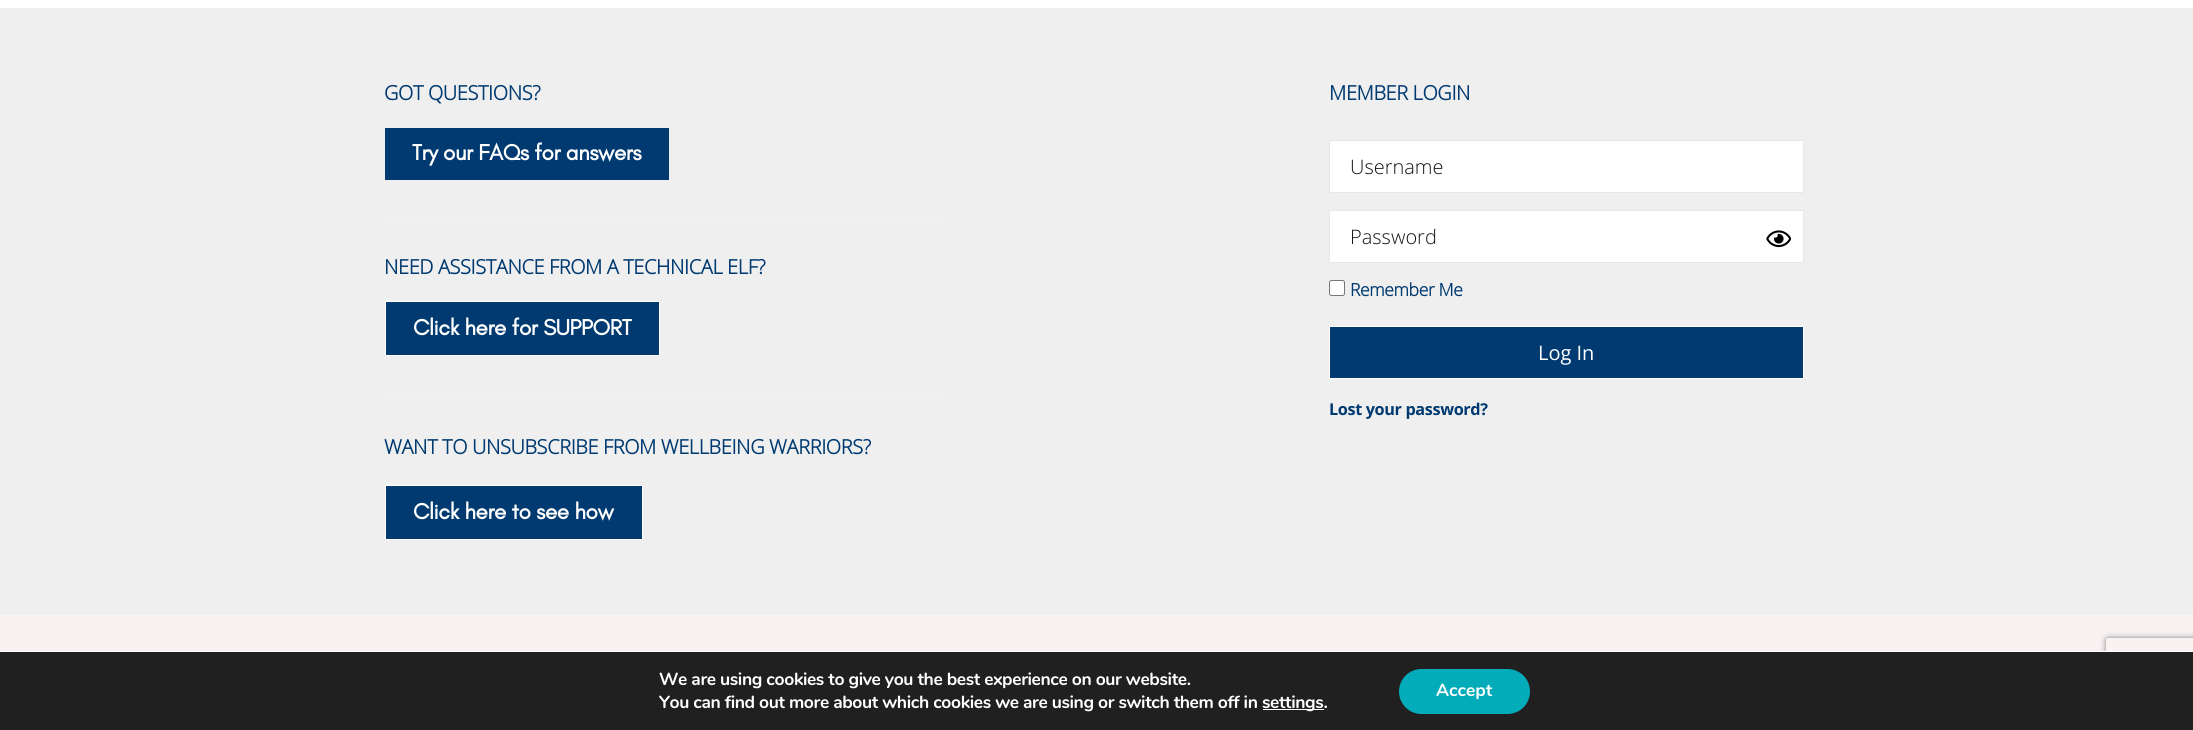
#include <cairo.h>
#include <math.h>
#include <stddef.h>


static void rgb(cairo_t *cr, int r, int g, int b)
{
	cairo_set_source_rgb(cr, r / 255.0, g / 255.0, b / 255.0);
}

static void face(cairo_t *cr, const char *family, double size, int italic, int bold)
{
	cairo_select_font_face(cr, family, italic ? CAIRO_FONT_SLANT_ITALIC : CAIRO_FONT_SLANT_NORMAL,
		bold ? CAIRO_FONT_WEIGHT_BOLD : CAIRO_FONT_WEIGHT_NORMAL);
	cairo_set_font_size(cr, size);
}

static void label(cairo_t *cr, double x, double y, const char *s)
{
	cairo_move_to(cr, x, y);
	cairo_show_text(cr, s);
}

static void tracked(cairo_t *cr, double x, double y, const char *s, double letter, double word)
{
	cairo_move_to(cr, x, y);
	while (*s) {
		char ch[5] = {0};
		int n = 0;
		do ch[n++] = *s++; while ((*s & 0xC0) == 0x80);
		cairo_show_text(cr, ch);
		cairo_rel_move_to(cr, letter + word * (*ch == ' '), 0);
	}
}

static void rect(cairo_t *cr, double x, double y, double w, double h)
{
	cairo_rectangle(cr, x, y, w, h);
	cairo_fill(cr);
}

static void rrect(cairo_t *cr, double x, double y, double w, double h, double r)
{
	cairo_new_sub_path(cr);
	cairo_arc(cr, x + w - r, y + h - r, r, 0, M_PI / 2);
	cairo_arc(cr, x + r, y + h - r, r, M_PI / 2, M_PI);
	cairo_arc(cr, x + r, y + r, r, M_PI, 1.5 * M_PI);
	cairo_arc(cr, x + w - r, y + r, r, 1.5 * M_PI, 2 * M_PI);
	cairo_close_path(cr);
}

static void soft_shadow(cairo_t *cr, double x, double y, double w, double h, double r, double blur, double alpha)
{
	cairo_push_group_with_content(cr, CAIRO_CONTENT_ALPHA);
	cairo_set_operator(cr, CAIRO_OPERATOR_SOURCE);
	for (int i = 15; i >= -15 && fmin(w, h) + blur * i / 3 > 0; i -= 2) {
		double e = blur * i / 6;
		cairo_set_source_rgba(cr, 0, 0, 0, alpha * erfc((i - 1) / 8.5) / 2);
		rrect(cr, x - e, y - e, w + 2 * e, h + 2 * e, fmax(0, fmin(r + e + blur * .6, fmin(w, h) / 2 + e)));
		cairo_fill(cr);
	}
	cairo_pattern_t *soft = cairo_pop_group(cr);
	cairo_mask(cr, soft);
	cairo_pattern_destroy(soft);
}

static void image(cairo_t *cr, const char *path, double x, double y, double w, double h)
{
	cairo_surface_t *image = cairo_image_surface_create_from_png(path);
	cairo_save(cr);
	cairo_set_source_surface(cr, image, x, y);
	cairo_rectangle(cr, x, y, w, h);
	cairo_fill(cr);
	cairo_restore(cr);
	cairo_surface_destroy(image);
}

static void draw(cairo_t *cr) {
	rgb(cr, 255, 255, 255);
	cairo_paint(cr);
	rgb(cr, 239, 239, 239);
	rect(cr, 0, 8, 2193, 607);
	face(cr, "Open Sans", 20, 0, 1);
	rgb(cr, 0, 58, 112);
	tracked(cr, 384, 100, "GOT QUESTIONS?", -0.38, 0);
	rect(cr, 385, 128, 284, 52);
	face(cr, "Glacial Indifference", 22.5, 0, 1);
	rgb(cr, 255, 255, 255);
	tracked(cr, 412, 160, "Try our FAQs for answers", -0.38, 0);
	rgb(cr, 242, 242, 242);
	rect(cr, 385, 218, 558, 1);
	face(cr, "Open Sans", 20, 0, 1);
	rgb(cr, 0, 58, 112);
	tracked(cr, 384, 274, "NEED ASSISTANCE FROM A TECHNICAL ELF?", -0.38, 0);
	cairo_rectangle(cr, 385.5, 301.5, 274, 54);
	cairo_fill_preserve(cr);
	rgb(cr, 255, 255, 255);
	cairo_set_line_width(cr, 1);
	cairo_stroke(cr);
	face(cr, "Glacial Indifference", 22.5, 0, 1);
	tracked(cr, 413, 335, "Click here for SUPPORT", -0.38, 0);
	rgb(cr, 242, 242, 242);
	rect(cr, 385, 394, 558, 1);
	face(cr, "Open Sans", 20, 0, 1);
	rgb(cr, 0, 58, 112);
	tracked(cr, 384, 454, "WANT TO UNSUBSCRIBE FROM WELLBEING WARRIORS?", -0.38, 0);
	cairo_rectangle(cr, 385.5, 485.5, 257, 54);
	cairo_fill_preserve(cr);
	rgb(cr, 255, 255, 255);
	cairo_stroke(cr);
	face(cr, "Glacial Indifference", 22.5, 0, 1);
	tracked(cr, 413, 519, "Click here to see how", -0.38, 0);
	face(cr, "Open Sans", 20, 0, 1);
	rgb(cr, 0, 58, 112);
	tracked(cr, 1329, 100, "MEMBER LOGIN", -0.38, 0);
	rgb(cr, 255, 255, 255);
	cairo_rectangle(cr, 1329.5, 140.5, 474, 52);
	cairo_fill_preserve(cr);
	rgb(cr, 231, 231, 231);
	cairo_stroke(cr);
	face(cr, "Open Sans Light", 20, 0, 0);
	rgb(cr, 19, 21, 22);
	label(cr, 1350, 174, "Username");
	rgb(cr, 255, 255, 255);
	cairo_rectangle(cr, 1329.5, 210.5, 474, 52);
	cairo_fill_preserve(cr);
	rgb(cr, 231, 231, 231);
	cairo_stroke(cr);
	rgb(cr, 19, 21, 22);
	label(cr, 1350, 244, "Password");
	image(cr, "image0.png", 1766, 230, 25, 18);
	rgb(cr, 255, 255, 255);
	rrect(cr, 1329.5, 280.5, 15, 15, 2);
	cairo_fill_preserve(cr);
	rgb(cr, 118, 118, 118);
	cairo_stroke(cr);
	face(cr, "Open Sans", 17.5, 0, 1);
	rgb(cr, 0, 58, 112);
	tracked(cr, 1350, 296, "Remember Me", -0.38, 0);
	cairo_rectangle(cr, 1329.5, 326.5, 474, 52);
	cairo_fill_preserve(cr);
	rgb(cr, 255, 255, 255);
	cairo_stroke(cr);
	face(cr, "Open Sans", 20, 0, 0);
	label(cr, 1538, 360, "Log In");
	face(cr, "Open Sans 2", 16.25, 0, 1);
	rgb(cr, 0, 58, 112);
	tracked(cr, 1329, 415, "Lost your password?", -0.38, 0);
	rgb(cr, 248, 242, 243);
	rect(cr, 0, 615, 2193, 36);
	cairo_save(cr);
	cairo_set_fill_rule(cr, CAIRO_FILL_RULE_EVEN_ODD);
	cairo_new_path(cr);
	cairo_move_to(cr, 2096, 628);
	cairo_line_to(cr, 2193, 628);
	cairo_line_to(cr, 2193, 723);
	cairo_line_to(cr, 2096, 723);
	cairo_close_path(cr);
	cairo_move_to(cr, 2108.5, 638);
	cairo_line_to(cr, 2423.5, 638);
	cairo_curve_to(cr, 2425, 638, 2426, 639, 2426, 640.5);
	cairo_line_to(cr, 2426, 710.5);
	cairo_curve_to(cr, 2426, 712, 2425, 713, 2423.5, 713);
	cairo_line_to(cr, 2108.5, 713);
	cairo_curve_to(cr, 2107, 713, 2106, 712, 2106, 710.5);
	cairo_line_to(cr, 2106, 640.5);
	cairo_curve_to(cr, 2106, 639, 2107, 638, 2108.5, 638);
	cairo_close_path(cr);
	cairo_clip(cr);
	rgb(cr, 128, 128, 128);
	soft_shadow(cr, 2106, 638, 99, 75, 2.5, 3, 1);
	cairo_restore(cr);
	rgb(cr, 32, 32, 32);
	rect(cr, 0, 652, 2193, 78);
	rgb(cr, 255, 255, 255);
	rect(cr, 2100, 651, 7, 1);
	face(cr, "Nunito", 17.5, 0, 1);
	tracked(cr, 659, 685, "We are using cookies to give you the best experience on our website.", -0.38, 0);
	tracked(cr, 659, 708, "You can find out more about which cookies we are using or switch them off in", -0.38, 0);
	rect(cr, 1263, 709, 61, 1);
	tracked(cr, 1262, 708, "settings.", -0.38, 0);
	rgb(cr, 4, 172, 186);
	rrect(cr, 1399, 669, 131, 45, 22.5);
	cairo_fill(cr);
	rgb(cr, 255, 255, 255);
	label(cr, 1436, 696, "Accept");
}

int main(void) {
	cairo_surface_t *surface = cairo_image_surface_create(CAIRO_FORMAT_RGB24, 2193, 730);
	cairo_t *cr = cairo_create(surface);
	cairo_font_options_t *options = cairo_font_options_create();
	cairo_font_options_set_hint_metrics(options, CAIRO_HINT_METRICS_OFF);
	cairo_font_options_set_hint_style(options, CAIRO_HINT_STYLE_NONE);
	cairo_set_font_options(cr, options);
	cairo_set_miter_limit(cr, 4);
	draw(cr);
	cairo_surface_write_to_png(surface, "render.png");
	cairo_font_options_destroy(options);
	cairo_destroy(cr);
	cairo_surface_destroy(surface);
	return 0;
}
